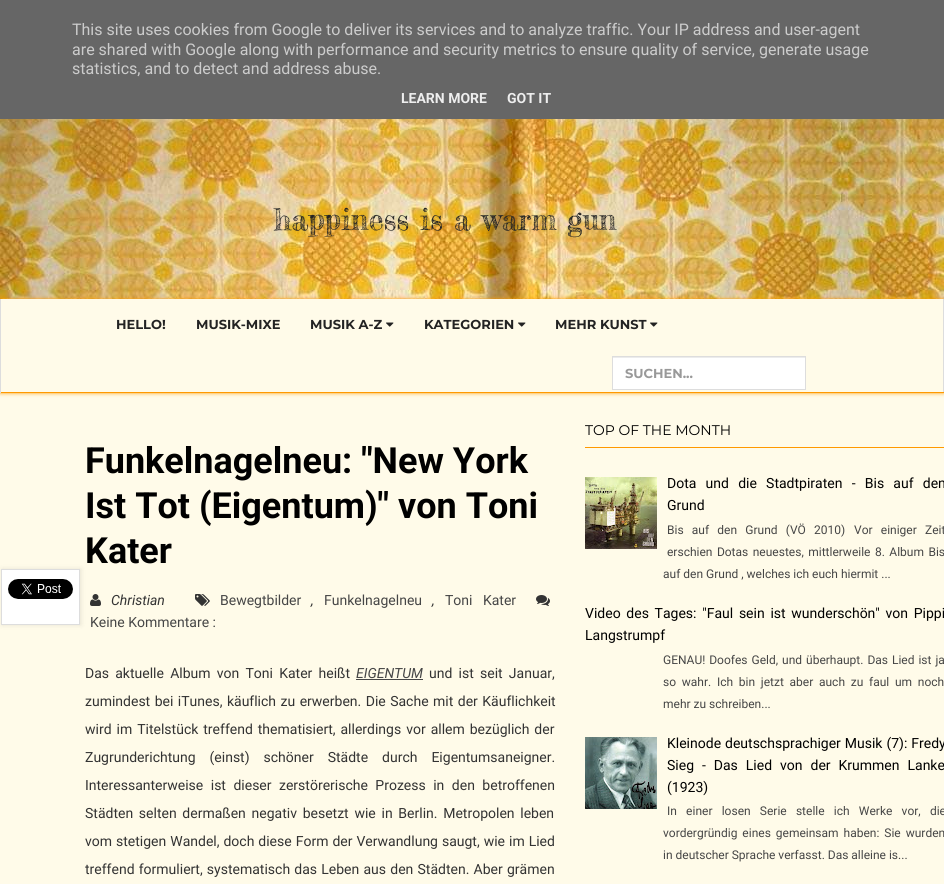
#include <cairo.h>
#include <math.h>
#include <stddef.h>


static void rgb(cairo_t *cr, int r, int g, int b)
{
	cairo_set_source_rgb(cr, r / 255.0, g / 255.0, b / 255.0);
}

static void face(cairo_t *cr, const char *family, double size, int italic, int bold)
{
	cairo_select_font_face(cr, family, italic ? CAIRO_FONT_SLANT_ITALIC : CAIRO_FONT_SLANT_NORMAL,
		bold ? CAIRO_FONT_WEIGHT_BOLD : CAIRO_FONT_WEIGHT_NORMAL);
	cairo_set_font_size(cr, size);
}

static void label(cairo_t *cr, double x, double y, const char *s)
{
	cairo_move_to(cr, x, y);
	cairo_show_text(cr, s);
}

static void tracked(cairo_t *cr, double x, double y, const char *s, double letter, double word)
{
	cairo_move_to(cr, x, y);
	while (*s) {
		char ch[5] = {0};
		int n = 0;
		do ch[n++] = *s++; while ((*s & 0xC0) == 0x80);
		cairo_show_text(cr, ch);
		cairo_rel_move_to(cr, letter + word * (*ch == ' '), 0);
	}
}

static void rect(cairo_t *cr, double x, double y, double w, double h)
{
	cairo_rectangle(cr, x, y, w, h);
	cairo_fill(cr);
}

static void rrect(cairo_t *cr, double x, double y, double w, double h, double r)
{
	cairo_new_sub_path(cr);
	cairo_arc(cr, x + w - r, y + h - r, r, 0, M_PI / 2);
	cairo_arc(cr, x + r, y + h - r, r, M_PI / 2, M_PI);
	cairo_arc(cr, x + r, y + r, r, M_PI, 1.5 * M_PI);
	cairo_arc(cr, x + w - r, y + r, r, 1.5 * M_PI, 2 * M_PI);
	cairo_close_path(cr);
}

static void soft_shadow(cairo_t *cr, double x, double y, double w, double h, double r, double blur, double alpha)
{
	cairo_push_group_with_content(cr, CAIRO_CONTENT_ALPHA);
	cairo_set_operator(cr, CAIRO_OPERATOR_SOURCE);
	for (int i = 15; i >= -15 && fmin(w, h) + blur * i / 3 > 0; i -= 2) {
		double e = blur * i / 6;
		cairo_set_source_rgba(cr, 0, 0, 0, alpha * erfc((i - 1) / 8.5) / 2);
		rrect(cr, x - e, y - e, w + 2 * e, h + 2 * e, fmax(0, fmin(r + e + blur * .6, fmin(w, h) / 2 + e)));
		cairo_fill(cr);
	}
	cairo_pattern_t *soft = cairo_pop_group(cr);
	cairo_mask(cr, soft);
	cairo_pattern_destroy(soft);
}

static void image(cairo_t *cr, const char *path, double x, double y, double w, double h)
{
	cairo_surface_t *image = cairo_image_surface_create_from_png(path);
	cairo_save(cr);
	cairo_set_source_surface(cr, image, x, y);
	cairo_rectangle(cr, x, y, w, h);
	cairo_fill(cr);
	cairo_restore(cr);
	cairo_surface_destroy(image);
}

static void draw(cairo_t *cr) {
	rgb(cr, 255, 251, 233);
	cairo_paint(cr);
	rgb(cr, 102, 102, 102);
	rect(cr, 0, 0, 944, 119);
	face(cr, "Roboto", 16, 0, 0);
	rgb(cr, 204, 204, 204);
	label(cr, 72, 35, "This site uses cookies from Google to deliver its services and to analyze traffic. Your IP address and user-agent");
	label(cr, 72, 55, "are shared with Google along with performance and security metrics to ensure quality of service, generate usage");
	label(cr, 72, 74, "statistics, and to detect and address abuse.");
	face(cr, "Roboto", 14, 0, 1);
	rgb(cr, 238, 238, 238);
	label(cr, 401, 103, "LEARN MORE");
	label(cr, 507, 103, "GOT IT");
	image(cr, "image0.png", 0, 119, 944, 180);
	face(cr, "Fredericka the Great", 30, 0, 0);
	rgb(cr, 35, 35, 35);
	label(cr, 274, 230, "happiness is a warm gun");
	cairo_save(cr);
	cairo_set_fill_rule(cr, CAIRO_FILL_RULE_EVEN_ODD);
	cairo_new_path(cr);
	cairo_move_to(cr, 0, 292);
	cairo_line_to(cr, 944, 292);
	cairo_line_to(cr, 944, 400);
	cairo_line_to(cr, 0, 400);
	cairo_close_path(cr);
	cairo_move_to(cr, 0, 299);
	cairo_line_to(cr, 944, 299);
	cairo_line_to(cr, 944, 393);
	cairo_line_to(cr, 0, 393);
	cairo_close_path(cr);
	cairo_clip(cr);
	rgb(cr, 255, 153, 0);
	soft_shadow(cr, 0, 299, 944, 94, 0, 2, 1);
	cairo_restore(cr);
	rgb(cr, 221, 221, 221);
	rect(cr, 943, 299, 1, 94);
	rgb(cr, 255, 153, 0);
	rect(cr, 0, 392, 944, 1);
	rgb(cr, 221, 221, 221);
	rect(cr, 0, 299, 1, 94);
	face(cr, "Montserrat", 13, 0, 1);
	rgb(cr, 35, 35, 35);
	label(cr, 116, 329, "HELLO!");
	label(cr, 196, 329, "MUSIK-MIXE");
	label(cr, 310, 329, "MUSIK A-Z");
	image(cr, "image1.png", 386, 322, 8, 5);
	label(cr, 424, 329, "KATEGORIEN");
	image(cr, "image1.png", 518, 322, 8, 5);
	label(cr, 555, 329, "MEHR KUNST");
	image(cr, "image1.png", 650, 322, 8, 5);
	rgb(cr, 255, 255, 255);
	rect(cr, 613, 358, 192, 31);
	rgb(cr, 236, 236, 236);
	rect(cr, 613, 357, 192, 1);
	cairo_rectangle(cr, 612.5, 356.5, 193, 33);
	rgb(cr, 221, 221, 221);
	cairo_set_line_width(cr, 1);
	cairo_stroke(cr);
	rgb(cr, 153, 153, 153);
	label(cr, 625, 378, "SUCHEN...");
	face(cr, "Roboto", 36, 0, 1);
	rgb(cr, 0, 0, 0);
	label(cr, 85, 473, "Funkelnagelneu: \"New York");
	label(cr, 85, 518, "Ist Tot (Eigentum)\" von Toni");
	label(cr, 85, 563, "Kater");
	rgb(cr, 0, 0, 0);
	soft_shadow(cr, 2, 569, 79, 56, 0, 2.5, 0.1);
	rgb(cr, 255, 255, 255);
	cairo_rectangle(cr, 1.5, 569.5, 78, 55);
	cairo_fill_preserve(cr);
	rgb(cr, 221, 221, 221);
	cairo_stroke(cr);
	image(cr, "image2.png", 8, 579, 65, 20);
	image(cr, "image3.png", 90, 594, 11, 12);
	face(cr, "Roboto", 14, 1, 0);
	rgb(cr, 51, 51, 51);
	label(cr, 111, 605, "Christian");
	image(cr, "image4.png", 195, 594, 15, 12);
	face(cr, "Roboto", 14, 0, 0);
	rgb(cr, 70, 70, 70);
	label(cr, 220, 605, "Bewegtbilder");
	face(cr, "Roboto", 14, 1, 0);
	rgb(cr, 51, 51, 51);
	label(cr, 311, 605, ",");
	face(cr, "Roboto", 14, 0, 0);
	rgb(cr, 70, 70, 70);
	label(cr, 324, 605, "Funkelnagelneu");
	face(cr, "Roboto", 14, 1, 0);
	rgb(cr, 51, 51, 51);
	label(cr, 432, 605, ",");
	face(cr, "Roboto", 14, 0, 0);
	rgb(cr, 70, 70, 70);
	tracked(cr, 445, 605, "Toni Kater", 0, 7);
	image(cr, "image5.png", 536, 595, 14, 11);
	label(cr, 90, 627, "Keine Kommentare :");
	rgb(cr, 51, 51, 51);
	tracked(cr, 85, 678, "Das aktuelle Album von Toni Kater heißt", 0, 2.75);
	face(cr, "Roboto", 14, 1, 0);
	rgb(cr, 70, 70, 70);
	label(cr, 356, 678, "EIGENTUM");
	rect(cr, 356, 679, 67, 1);
	face(cr, "Roboto", 14, 0, 0);
	rgb(cr, 51, 51, 51);
	tracked(cr, 429, 678, "und ist seit Januar,", 0, 2.75);
	tracked(cr, 85, 706, "zumindest bei iTunes, käuflich zu erwerben. Die Sache mit der Käuflichkeit", 0, 1);
	tracked(cr, 85, 734, "wird im Titelstück treffend thematisiert, allerdings vor allem bezüglich der", 0, 1.5);
	tracked(cr, 85, 762, "Zugrunderichtung (einst) schöner Städte durch Eigentumsaneigner.", 0, 10.5);
	tracked(cr, 85, 790, "Interessanterweise ist dieser zerstörerische Prozess in den betroffenen", 0, 4);
	tracked(cr, 85, 818, "Städten selten dermaßen negativ besetzt wie in Berlin. Metropolen leben", 0, 2.25);
	tracked(cr, 85, 846, "vom stetigen Wandel, doch diese Form der Verwandlung saugt, wie im Lied", 0, 0.5);
	tracked(cr, 85, 874, "treffend formuliert, systematisch das Leben aus den Städten. Aber grämen", 0, 0.75);
	rgb(cr, 255, 153, 0);
	rect(cr, 585, 447, 359, 1);
	face(cr, "Montserrat", 14, 0, 0);
	rgb(cr, 0, 0, 0);
	label(cr, 585, 435, "TOP OF THE MONTH");
	image(cr, "image6.png", 585, 477, 72, 72);
	face(cr, "Roboto", 14, 0, 0);
	tracked(cr, 667, 488, "Dota und die Stadtpiraten - Bis auf den", 0, 5.75);
	label(cr, 667, 510, "Grund");
	face(cr, "Roboto", 12, 0, 0);
	rgb(cr, 70, 70, 70);
	tracked(cr, 667, 534, "Bis auf den Grund (VÖ 2010)", 0, 5.25);
	tracked(cr, 854, 534, "Vor einiger Zeit", 0, 5.25);
	tracked(cr, 667, 556, "erschien Dotas neuestes, mittlerweile 8. Album Bis", 0, 1.5);
	label(cr, 663, 578, "auf den Grund , welches ich euch hiermit ...");
	face(cr, "Roboto", 14, 0, 0);
	rgb(cr, 0, 0, 0);
	tracked(cr, 585, 618, "Video des Tages: \"Faul sein ist wunderschön\" von Pippi", 0, 2.25);
	label(cr, 585, 640, "Langstrumpf");
	face(cr, "Roboto", 12, 0, 0);
	rgb(cr, 70, 70, 70);
	tracked(cr, 663, 664, "GENAU! Doofes Geld, und überhaupt. Das Lied ist ja", 0, 1);
	tracked(cr, 663, 686, "so wahr. Ich bin jetzt aber auch zu faul um noch", 0, 2.75);
	label(cr, 663, 708, "mehr zu schreiben...");
	image(cr, "image7.png", 585, 737, 72, 72);
	face(cr, "Roboto", 14, 0, 0);
	rgb(cr, 0, 0, 0);
	tracked(cr, 667, 748, "Kleinode deutschsprachiger Musik (7): Fredy", 0, 0.5);
	tracked(cr, 667, 770, "Sieg - Das Lied von der Krummen Lanke", 0, 4.5);
	label(cr, 667, 792, "(1923)");
	face(cr, "Roboto", 12, 0, 0);
	rgb(cr, 70, 70, 70);
	tracked(cr, 667, 815, "In einer losen Serie stelle ich Werke vor, die", 0, 6.25);
	tracked(cr, 663, 837, "vordergründig eines gemeinsam haben: Sie wurden", 0, 2);
	label(cr, 663, 859, "in deutscher Sprache verfasst. Das alleine is...");
}

int main(void) {
	cairo_surface_t *surface = cairo_image_surface_create(CAIRO_FORMAT_RGB24, 944, 884);
	cairo_t *cr = cairo_create(surface);
	cairo_font_options_t *options = cairo_font_options_create();
	cairo_font_options_set_hint_metrics(options, CAIRO_HINT_METRICS_OFF);
	cairo_font_options_set_hint_style(options, CAIRO_HINT_STYLE_NONE);
	cairo_set_font_options(cr, options);
	cairo_set_miter_limit(cr, 4);
	draw(cr);
	cairo_surface_write_to_png(surface, "render.png");
	cairo_font_options_destroy(options);
	cairo_destroy(cr);
	cairo_surface_destroy(surface);
	return 0;
}
